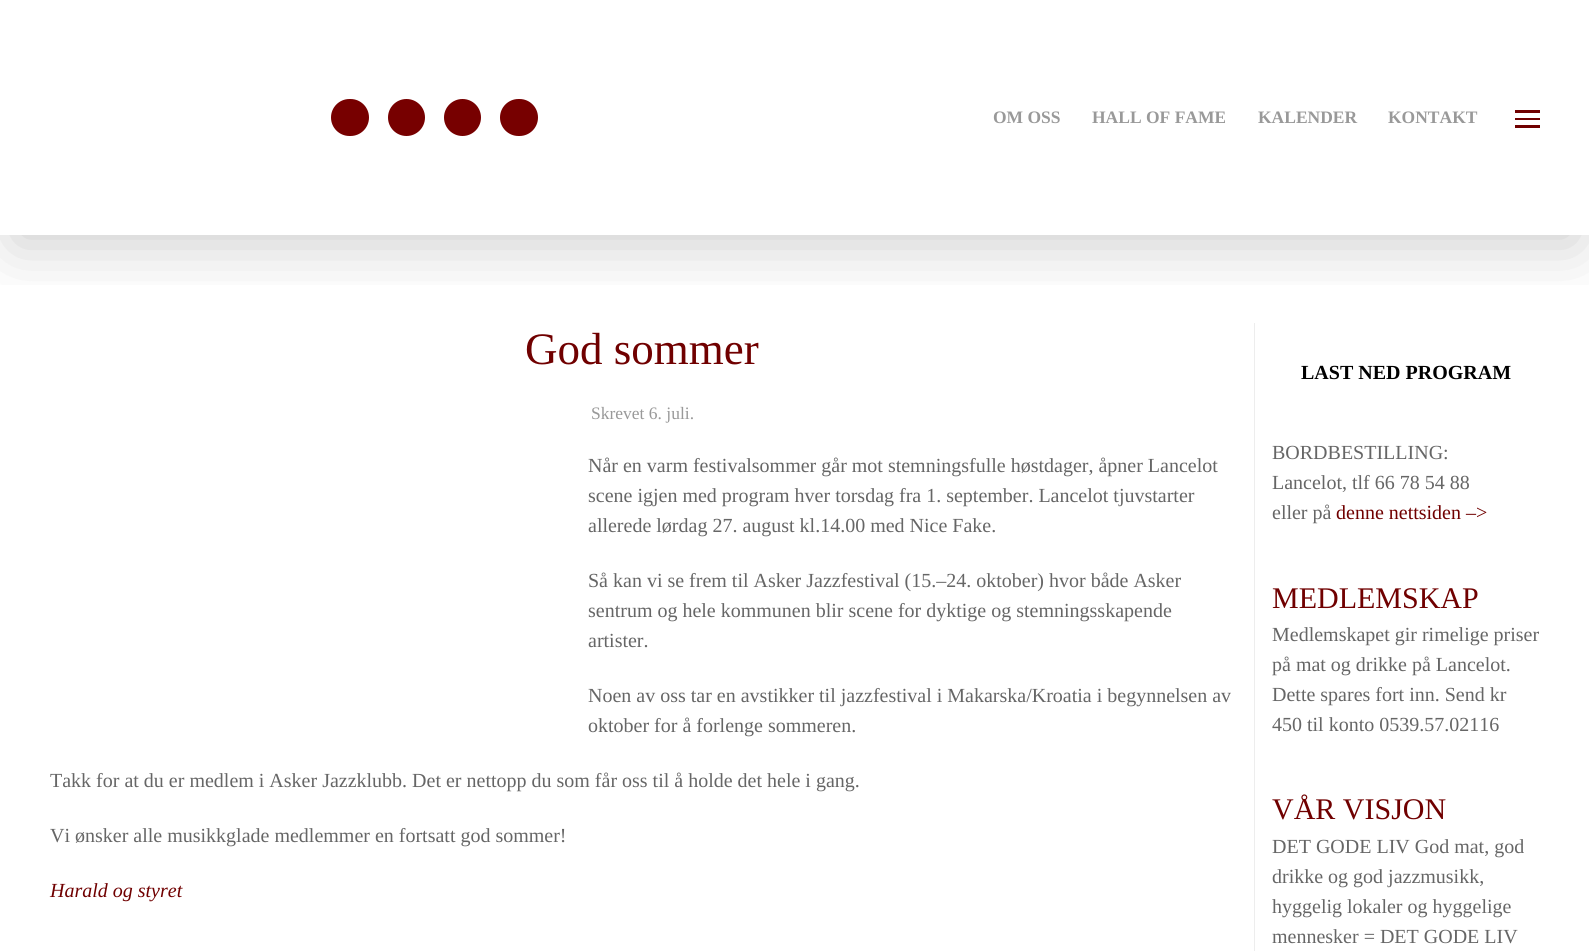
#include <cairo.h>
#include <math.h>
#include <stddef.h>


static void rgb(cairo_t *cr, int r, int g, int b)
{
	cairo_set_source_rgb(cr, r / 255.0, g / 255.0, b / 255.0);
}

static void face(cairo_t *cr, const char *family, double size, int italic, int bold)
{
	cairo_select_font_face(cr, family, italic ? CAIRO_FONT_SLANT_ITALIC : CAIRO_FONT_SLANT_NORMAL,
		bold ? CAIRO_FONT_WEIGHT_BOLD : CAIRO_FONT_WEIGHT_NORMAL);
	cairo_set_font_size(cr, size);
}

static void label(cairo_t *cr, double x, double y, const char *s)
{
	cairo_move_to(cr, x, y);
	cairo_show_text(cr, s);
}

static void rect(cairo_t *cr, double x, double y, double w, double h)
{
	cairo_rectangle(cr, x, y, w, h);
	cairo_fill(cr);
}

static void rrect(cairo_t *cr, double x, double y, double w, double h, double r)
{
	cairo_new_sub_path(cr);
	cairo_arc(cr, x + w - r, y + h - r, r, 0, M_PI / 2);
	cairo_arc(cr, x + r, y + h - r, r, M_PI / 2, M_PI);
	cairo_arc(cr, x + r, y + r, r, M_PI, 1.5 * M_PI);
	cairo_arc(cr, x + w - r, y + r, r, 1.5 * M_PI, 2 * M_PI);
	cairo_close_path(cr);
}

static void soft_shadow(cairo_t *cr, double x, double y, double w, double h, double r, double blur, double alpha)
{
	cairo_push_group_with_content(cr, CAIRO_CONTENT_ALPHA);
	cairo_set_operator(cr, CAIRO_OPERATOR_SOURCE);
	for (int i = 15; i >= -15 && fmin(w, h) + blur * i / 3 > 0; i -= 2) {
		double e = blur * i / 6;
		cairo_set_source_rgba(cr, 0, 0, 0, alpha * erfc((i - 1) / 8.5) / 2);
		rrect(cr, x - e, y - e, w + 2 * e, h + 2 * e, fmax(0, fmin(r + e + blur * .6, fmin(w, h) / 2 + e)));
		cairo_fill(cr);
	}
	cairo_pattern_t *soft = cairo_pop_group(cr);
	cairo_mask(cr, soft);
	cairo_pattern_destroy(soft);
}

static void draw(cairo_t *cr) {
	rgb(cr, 255, 255, 255);
	cairo_paint(cr);
	cairo_save(cr);
	cairo_rectangle(cr, 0, 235, 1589, 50);
	cairo_clip(cr);
	rgb(cr, 0, 0, 0);
	soft_shadow(cr, 13, 35, 1565, 210, 0, 31, 0.2);
	cairo_restore(cr);
	rgb(cr, 119, 0, 0);
	rrect(cr, 331, 99, 38, 37, 18.5);
	cairo_fill(cr);
	cairo_arc(cr, 406.5, 117.5, 18.5, 0, 2 * M_PI);
	cairo_fill(cr);
	cairo_arc(cr, 462.5, 117.5, 18.5, 0, 2 * M_PI);
	cairo_fill(cr);
	rrect(cr, 500, 99, 38, 37, 18.5);
	cairo_fill(cr);
	face(cr, "Liberation Serif", 17.5, 0, 1);
	rgb(cr, 153, 153, 153);
	label(cr, 993, 123, "OM OSS");
	label(cr, 1092, 123, "HALL OF FAME");
	label(cr, 1258, 123, "KALENDER");
	label(cr, 1388, 123, "KONTAKT");
	rgb(cr, 112, 0, 0);
	rect(cr, 1515, 110, 25, 3);
	rect(cr, 1515, 118, 25, 2);
	rect(cr, 1515, 125, 25, 3);
	face(cr, "Liberation Serif", 45, 0, 0);
	label(cr, 525, 364, "God sommer");
	face(cr, "Liberation Serif", 17.5, 0, 0);
	rgb(cr, 153, 153, 153);
	label(cr, 591, 419, "Skrevet 6. juli.");
	face(cr, "Liberation Serif", 20, 0, 0);
	rgb(cr, 102, 102, 102);
	label(cr, 588, 472, "Når en varm festivalsommer går mot stemningsfulle høstdager, åpner Lancelot");
	label(cr, 588, 502, "scene igjen med program hver torsdag fra 1. september. Lancelot tjuvstarter");
	label(cr, 588, 532, "allerede lørdag 27. august kl.14.00 med Nice Fake.");
	label(cr, 588, 587, "Så kan vi se frem til Asker Jazzfestival (15.–24. oktober) hvor både Asker");
	label(cr, 588, 617, "sentrum og hele kommunen blir scene for dyktige og stemningsskapende");
	label(cr, 588, 647, "artister.");
	label(cr, 588, 702, "Noen av oss tar en avstikker til jazzfestival i Makarska/Kroatia i begynnelsen av");
	label(cr, 588, 732, "oktober for å forlenge sommeren.");
	label(cr, 50, 787, "Takk for at du er medlem i Asker Jazzklubb. Det er nettopp du som får oss til å holde det hele i gang.");
	label(cr, 50, 842, "Vi ønsker alle musikkglade medlemmer en fortsatt god sommer!");
	face(cr, "Liberation Serif", 20, 1, 0);
	rgb(cr, 112, 0, 0);
	label(cr, 50, 897, "Harald og styret");
	rgb(cr, 237, 237, 237);
	rect(cr, 1254, 323, 1, 628);
	face(cr, "Liberation Serif", 20, 0, 1);
	rgb(cr, 0, 0, 0);
	label(cr, 1301, 379, "LAST NED PROGRAM");
	face(cr, "Liberation Serif", 20, 0, 0);
	rgb(cr, 102, 102, 102);
	label(cr, 1272, 459, "BORDBESTILLING:");
	label(cr, 1272, 489, "Lancelot, tlf 66 78 54 88");
	label(cr, 1272, 519, "eller på");
	rgb(cr, 112, 0, 0);
	label(cr, 1336, 519, "denne nettsiden –>");
	face(cr, "Liberation Serif", 30, 0, 0);
	label(cr, 1272, 608, "MEDLEMSKAP");
	face(cr, "Liberation Serif", 20, 0, 0);
	rgb(cr, 102, 102, 102);
	label(cr, 1272, 641, "Medlemskapet gir rimelige priser");
	label(cr, 1272, 671, "på mat og drikke på Lancelot.");
	label(cr, 1272, 701, "Dette spares fort inn. Send kr");
	label(cr, 1272, 731, "450 til konto 0539.57.02116");
	face(cr, "Liberation Serif", 30, 0, 0);
	rgb(cr, 112, 0, 0);
	label(cr, 1272, 819, "VÅR VISJON");
	face(cr, "Liberation Serif", 20, 0, 0);
	rgb(cr, 102, 102, 102);
	label(cr, 1272, 853, "DET GODE LIV God mat, god");
	label(cr, 1272, 883, "drikke og god jazzmusikk,");
	label(cr, 1272, 913, "hyggelig lokaler og hyggelige");
	label(cr, 1272, 943, "mennesker = DET GODE LIV");
}

int main(void) {
	cairo_surface_t *surface = cairo_image_surface_create(CAIRO_FORMAT_RGB24, 1589, 951);
	cairo_t *cr = cairo_create(surface);
	cairo_font_options_t *options = cairo_font_options_create();
	cairo_font_options_set_hint_metrics(options, CAIRO_HINT_METRICS_OFF);
	cairo_font_options_set_hint_style(options, CAIRO_HINT_STYLE_NONE);
	cairo_set_font_options(cr, options);
	cairo_set_miter_limit(cr, 4);
	draw(cr);
	cairo_surface_write_to_png(surface, "render.png");
	cairo_font_options_destroy(options);
	cairo_destroy(cr);
	cairo_surface_destroy(surface);
	return 0;
}
